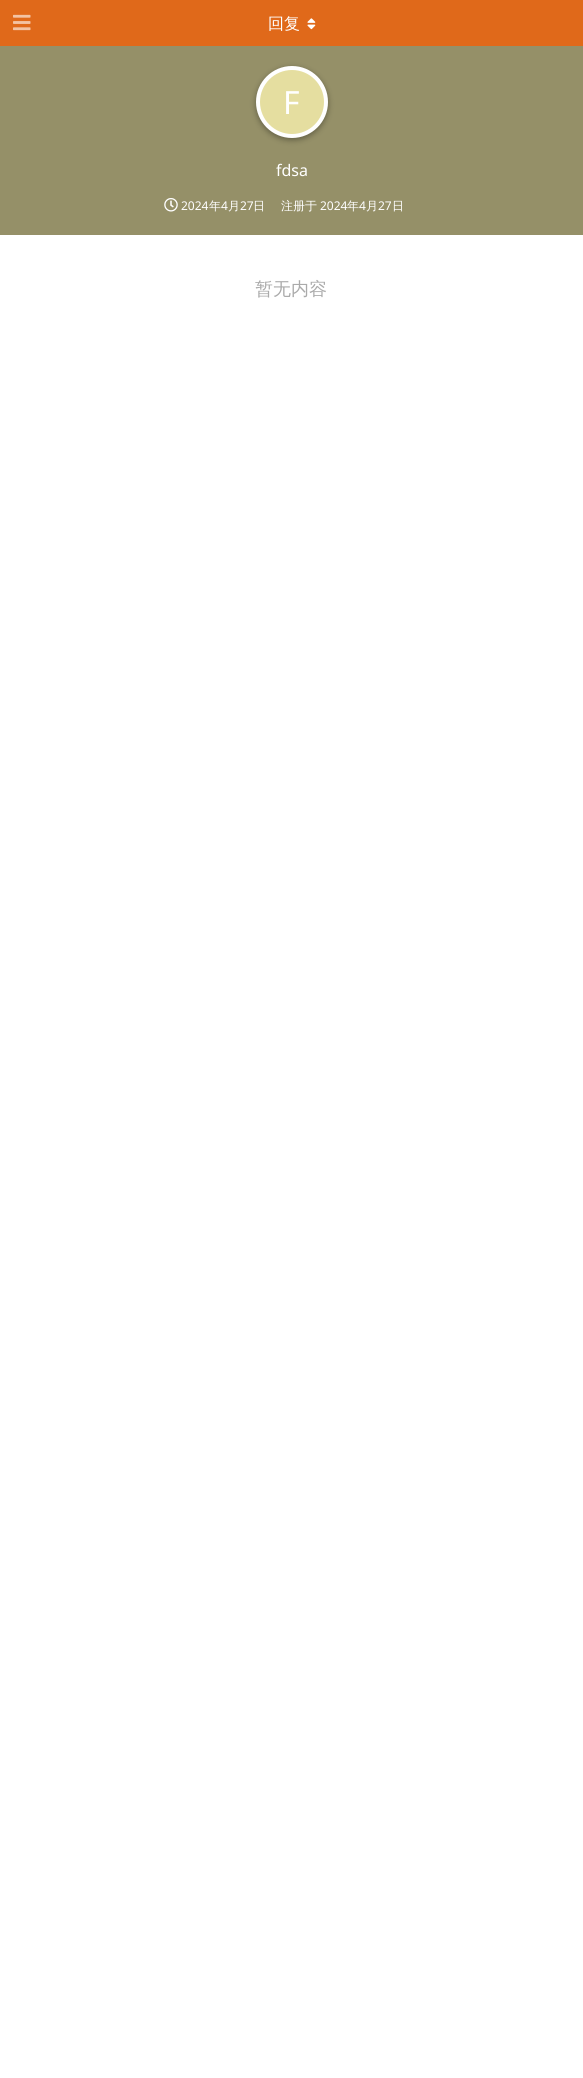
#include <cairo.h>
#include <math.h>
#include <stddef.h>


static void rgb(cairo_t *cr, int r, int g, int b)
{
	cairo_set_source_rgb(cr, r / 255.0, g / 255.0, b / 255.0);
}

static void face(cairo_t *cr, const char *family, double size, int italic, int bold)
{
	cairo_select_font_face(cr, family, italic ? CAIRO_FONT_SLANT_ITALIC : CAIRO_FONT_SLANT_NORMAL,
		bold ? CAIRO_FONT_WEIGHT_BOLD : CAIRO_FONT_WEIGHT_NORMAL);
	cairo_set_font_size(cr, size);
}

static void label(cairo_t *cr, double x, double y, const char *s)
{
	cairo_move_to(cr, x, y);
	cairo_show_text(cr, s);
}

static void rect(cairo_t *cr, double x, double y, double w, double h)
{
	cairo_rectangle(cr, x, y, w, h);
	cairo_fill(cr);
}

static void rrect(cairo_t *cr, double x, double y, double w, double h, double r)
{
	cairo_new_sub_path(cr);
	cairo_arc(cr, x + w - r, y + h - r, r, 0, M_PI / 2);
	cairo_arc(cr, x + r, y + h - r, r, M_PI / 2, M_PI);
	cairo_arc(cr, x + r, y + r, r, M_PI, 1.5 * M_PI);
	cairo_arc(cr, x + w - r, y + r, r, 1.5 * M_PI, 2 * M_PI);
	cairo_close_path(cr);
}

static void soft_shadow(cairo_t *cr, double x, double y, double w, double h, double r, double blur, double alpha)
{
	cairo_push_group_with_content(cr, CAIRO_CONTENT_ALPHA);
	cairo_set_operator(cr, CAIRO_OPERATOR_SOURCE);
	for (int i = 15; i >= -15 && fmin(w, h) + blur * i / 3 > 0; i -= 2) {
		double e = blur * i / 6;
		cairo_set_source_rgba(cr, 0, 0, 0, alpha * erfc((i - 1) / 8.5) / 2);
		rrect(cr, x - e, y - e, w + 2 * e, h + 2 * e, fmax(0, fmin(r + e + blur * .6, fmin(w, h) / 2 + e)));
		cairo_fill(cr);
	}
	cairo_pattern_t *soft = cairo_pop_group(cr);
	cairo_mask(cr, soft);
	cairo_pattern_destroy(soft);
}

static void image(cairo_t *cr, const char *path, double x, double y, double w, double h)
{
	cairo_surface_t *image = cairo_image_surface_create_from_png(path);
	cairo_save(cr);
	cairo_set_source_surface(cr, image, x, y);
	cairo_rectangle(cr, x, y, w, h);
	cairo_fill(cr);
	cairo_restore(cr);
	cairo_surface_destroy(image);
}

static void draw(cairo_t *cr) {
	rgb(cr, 255, 255, 255);
	cairo_paint(cr);
	rgb(cr, 224, 105, 26);
	rect(cr, 0, 0, 583, 46);
	image(cr, "image0.png", 13, 14, 18, 17);
	face(cr, "WenQuanYi Zen Hei Medium", 16, 0, 0);
	rgb(cr, 255, 255, 255);
	label(cr, 268, 29, "回复");
	image(cr, "image1.png", 307, 18, 9, 12);
	face(cr, "WenQuanYi Zen Hei Medium", 18, 0, 0);
	rgb(cr, 170, 170, 170);
	label(cr, 255, 295, "暂无内容");
	rgb(cr, 149, 144, 104);
	rect(cr, 0, 46, 583, 189);
	rgb(cr, 0, 0, 0);
	soft_shadow(cr, 256, 68, 72, 72, 36, 3, 0.35);
	rgb(cr, 229, 222, 160);
	cairo_arc(cr, 292, 102, 34, 0, 2 * M_PI);
	cairo_fill_preserve(cr);
	rgb(cr, 255, 255, 255);
	cairo_set_line_width(cr, 4);
	cairo_stroke(cr);
	face(cr, "Noto Sans", 32, 0, 0);
	label(cr, 283, 114, "F");
	face(cr, "Noto Sans", 16, 0, 0);
	label(cr, 276, 176, "fdsa");
	image(cr, "image2.png", 164, 198, 14, 14);
	face(cr, "Noto Sans", 12, 0, 0);
	label(cr, 181, 210, "2024");
	face(cr, "WenQuanYi Zen Hei Medium", 12, 0, 0);
	label(cr, 209, 210, "年");
	face(cr, "Noto Sans", 12, 0, 0);
	label(cr, 221, 210, "4");
	face(cr, "WenQuanYi Zen Hei Medium", 12, 0, 0);
	label(cr, 228, 210, "月");
	face(cr, "Noto Sans", 12, 0, 0);
	label(cr, 240, 210, "27");
	face(cr, "WenQuanYi Zen Hei Medium", 12, 0, 0);
	label(cr, 253, 210, "日");
	label(cr, 281, 210, "注册于");
	face(cr, "Noto Sans", 12, 0, 0);
	label(cr, 320, 210, "2024");
	face(cr, "WenQuanYi Zen Hei Medium", 12, 0, 0);
	label(cr, 347, 210, "年");
	face(cr, "Noto Sans", 12, 0, 0);
	label(cr, 359, 210, "4");
	face(cr, "WenQuanYi Zen Hei Medium", 12, 0, 0);
	label(cr, 366, 210, "月");
	face(cr, "Noto Sans", 12, 0, 0);
	label(cr, 378, 210, "27");
	face(cr, "WenQuanYi Zen Hei Medium", 12, 0, 0);
	label(cr, 392, 210, "日");
}

int main(void) {
	cairo_surface_t *surface = cairo_image_surface_create(CAIRO_FORMAT_RGB24, 583, 2078);
	cairo_t *cr = cairo_create(surface);
	cairo_font_options_t *options = cairo_font_options_create();
	cairo_font_options_set_hint_metrics(options, CAIRO_HINT_METRICS_OFF);
	cairo_font_options_set_hint_style(options, CAIRO_HINT_STYLE_NONE);
	cairo_set_font_options(cr, options);
	cairo_set_miter_limit(cr, 4);
	draw(cr);
	cairo_surface_write_to_png(surface, "render.png");
	cairo_font_options_destroy(options);
	cairo_destroy(cr);
	cairo_surface_destroy(surface);
	return 0;
}
